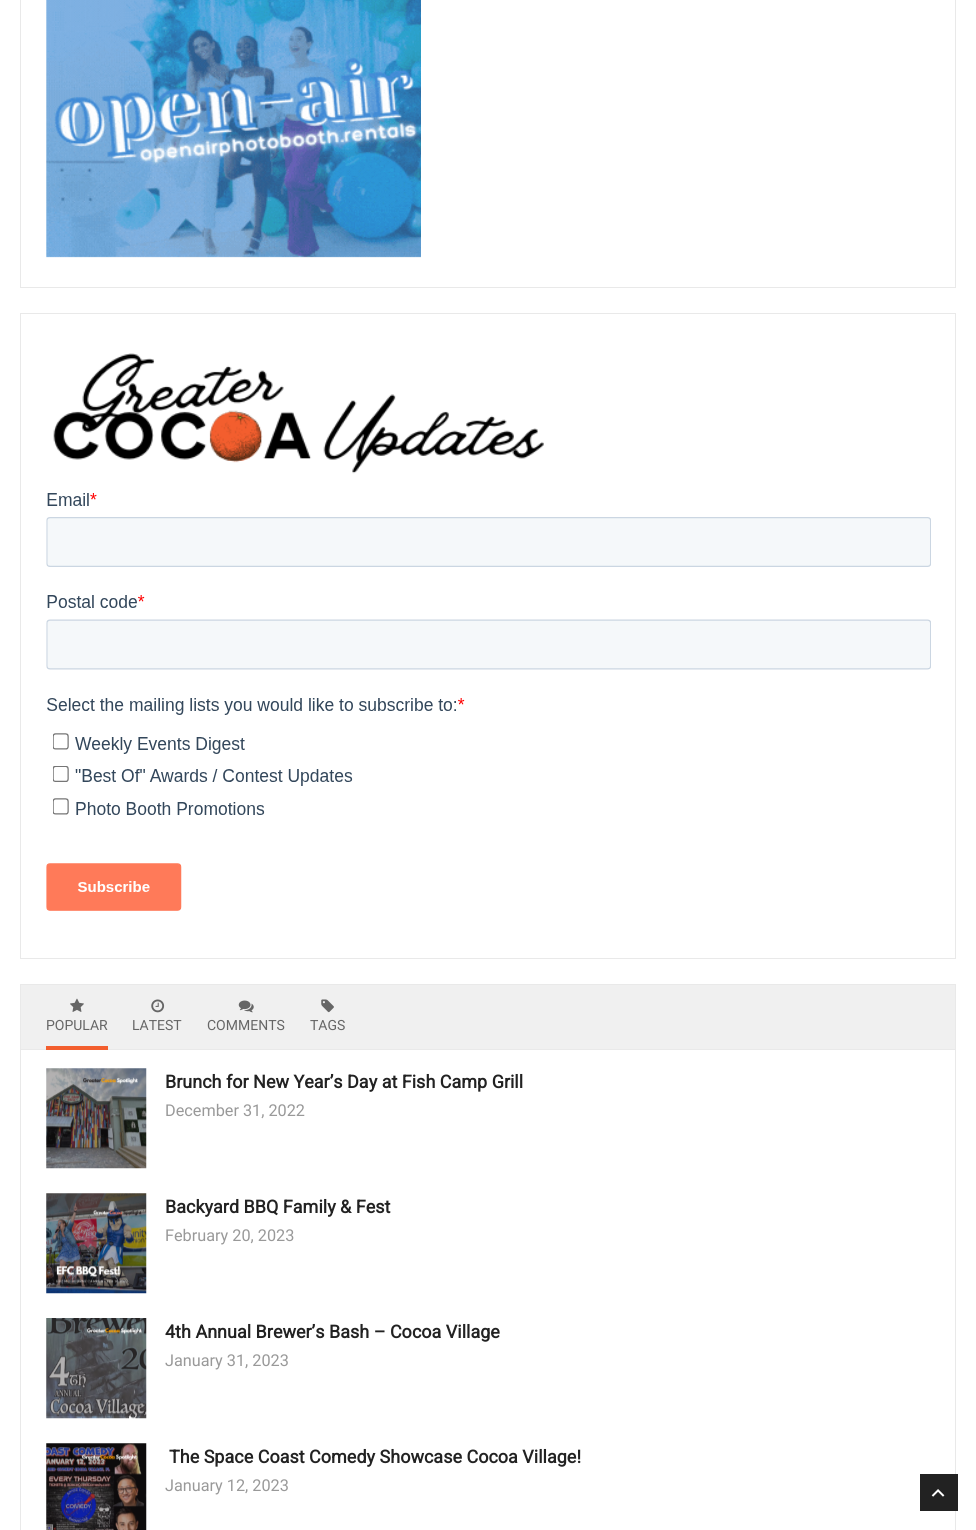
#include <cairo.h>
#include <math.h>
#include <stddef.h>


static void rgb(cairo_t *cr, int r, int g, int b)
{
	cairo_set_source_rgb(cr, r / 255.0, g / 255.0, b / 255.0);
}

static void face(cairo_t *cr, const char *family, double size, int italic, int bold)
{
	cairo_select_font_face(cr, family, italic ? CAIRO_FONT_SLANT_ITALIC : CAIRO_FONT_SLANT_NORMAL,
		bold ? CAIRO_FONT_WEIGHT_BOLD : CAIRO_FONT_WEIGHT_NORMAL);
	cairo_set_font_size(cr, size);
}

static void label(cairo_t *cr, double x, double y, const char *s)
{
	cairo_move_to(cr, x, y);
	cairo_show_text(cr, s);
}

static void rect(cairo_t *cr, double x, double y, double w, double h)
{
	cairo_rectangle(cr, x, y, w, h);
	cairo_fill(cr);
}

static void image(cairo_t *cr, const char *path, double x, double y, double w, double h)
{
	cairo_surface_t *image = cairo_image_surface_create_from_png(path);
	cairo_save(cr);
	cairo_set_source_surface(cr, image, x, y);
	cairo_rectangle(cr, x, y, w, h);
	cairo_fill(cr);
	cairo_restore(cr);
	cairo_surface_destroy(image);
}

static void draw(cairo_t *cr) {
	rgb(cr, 255, 255, 255);
	cairo_paint(cr);
	cairo_rectangle(cr, 20.5, -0.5, 935, 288);
	rgb(cr, 233, 233, 233);
	cairo_set_line_width(cr, 1);
	cairo_stroke(cr);
	image(cr, "image0.png", 46, 0, 375, 258);
	cairo_rectangle(cr, 20.5, 313.5, 935, 645);
	cairo_stroke(cr);
	image(cr, "image1.png", 53, 353, 491, 121);
	image(cr, "image2.png", 46, 493, 885, 418);
	cairo_rectangle(cr, 20.5, 984.5, 935, 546);
	cairo_stroke(cr);
	rgb(cr, 240, 240, 240);
	rect(cr, 21, 985, 934, 64);
	rgb(cr, 233, 233, 233);
	rect(cr, 21, 1049, 934, 1);
	rgb(cr, 243, 94, 46);
	rect(cr, 46, 1046, 62, 4);
	image(cr, "image3.png", 70, 998, 14, 14);
	face(cr, "Roboto", 14, 0, 0);
	rgb(cr, 102, 102, 102);
	label(cr, 46, 1030, "POPULAR");
	image(cr, "image4.png", 151, 999, 14, 14);
	label(cr, 132, 1030, "LATEST");
	image(cr, "image5.png", 238, 1000, 16, 13);
	label(cr, 207, 1030, "COMMENTS");
	image(cr, "image6.png", 321, 999, 13, 14);
	label(cr, 310, 1030, "TAGS");
	image(cr, "image7.png", 46, 1068, 101, 101);
	face(cr, "Roboto", 18, 0, 1);
	rgb(cr, 34, 34, 34);
	label(cr, 165, 1088, "Brunch for New Year’s Day at Fish Camp Grill");
	face(cr, "Roboto", 16.25, 0, 0);
	rgb(cr, 153, 153, 153);
	label(cr, 165, 1116, "December 31, 2022");
	image(cr, "image8.png", 46, 1193, 101, 101);
	face(cr, "Roboto", 18, 0, 1);
	rgb(cr, 34, 34, 34);
	label(cr, 165, 1213, "Backyard BBQ Family & Fest");
	face(cr, "Roboto", 16.25, 0, 0);
	rgb(cr, 153, 153, 153);
	label(cr, 165, 1241, "February 20, 2023");
	image(cr, "image9.png", 46, 1318, 101, 101);
	face(cr, "Roboto", 18, 0, 1);
	rgb(cr, 34, 34, 34);
	label(cr, 165, 1338, "4th Annual Brewer’s Bash – Cocoa Village");
	face(cr, "Roboto", 16.25, 0, 0);
	rgb(cr, 153, 153, 153);
	label(cr, 165, 1366, "January 31, 2023");
	image(cr, "image10.png", 46, 1443, 101, 87);
	face(cr, "Roboto", 18, 0, 1);
	rgb(cr, 34, 34, 34);
	label(cr, 169, 1463, "The Space Coast Comedy Showcase Cocoa Village!");
	face(cr, "Roboto", 16.25, 0, 0);
	rgb(cr, 153, 153, 153);
	label(cr, 165, 1491, "January 12, 2023");
	rgb(cr, 34, 34, 34);
	rect(cr, 920, 1474, 38, 37);
	image(cr, "image11.png", 931, 1489, 14, 8);
}

int main(void) {
	cairo_surface_t *surface = cairo_image_surface_create(CAIRO_FORMAT_RGB24, 976, 1530);
	cairo_t *cr = cairo_create(surface);
	cairo_font_options_t *options = cairo_font_options_create();
	cairo_font_options_set_hint_metrics(options, CAIRO_HINT_METRICS_OFF);
	cairo_font_options_set_hint_style(options, CAIRO_HINT_STYLE_NONE);
	cairo_set_font_options(cr, options);
	cairo_set_miter_limit(cr, 4);
	draw(cr);
	cairo_surface_write_to_png(surface, "render.png");
	cairo_font_options_destroy(options);
	cairo_destroy(cr);
	cairo_surface_destroy(surface);
	return 0;
}
